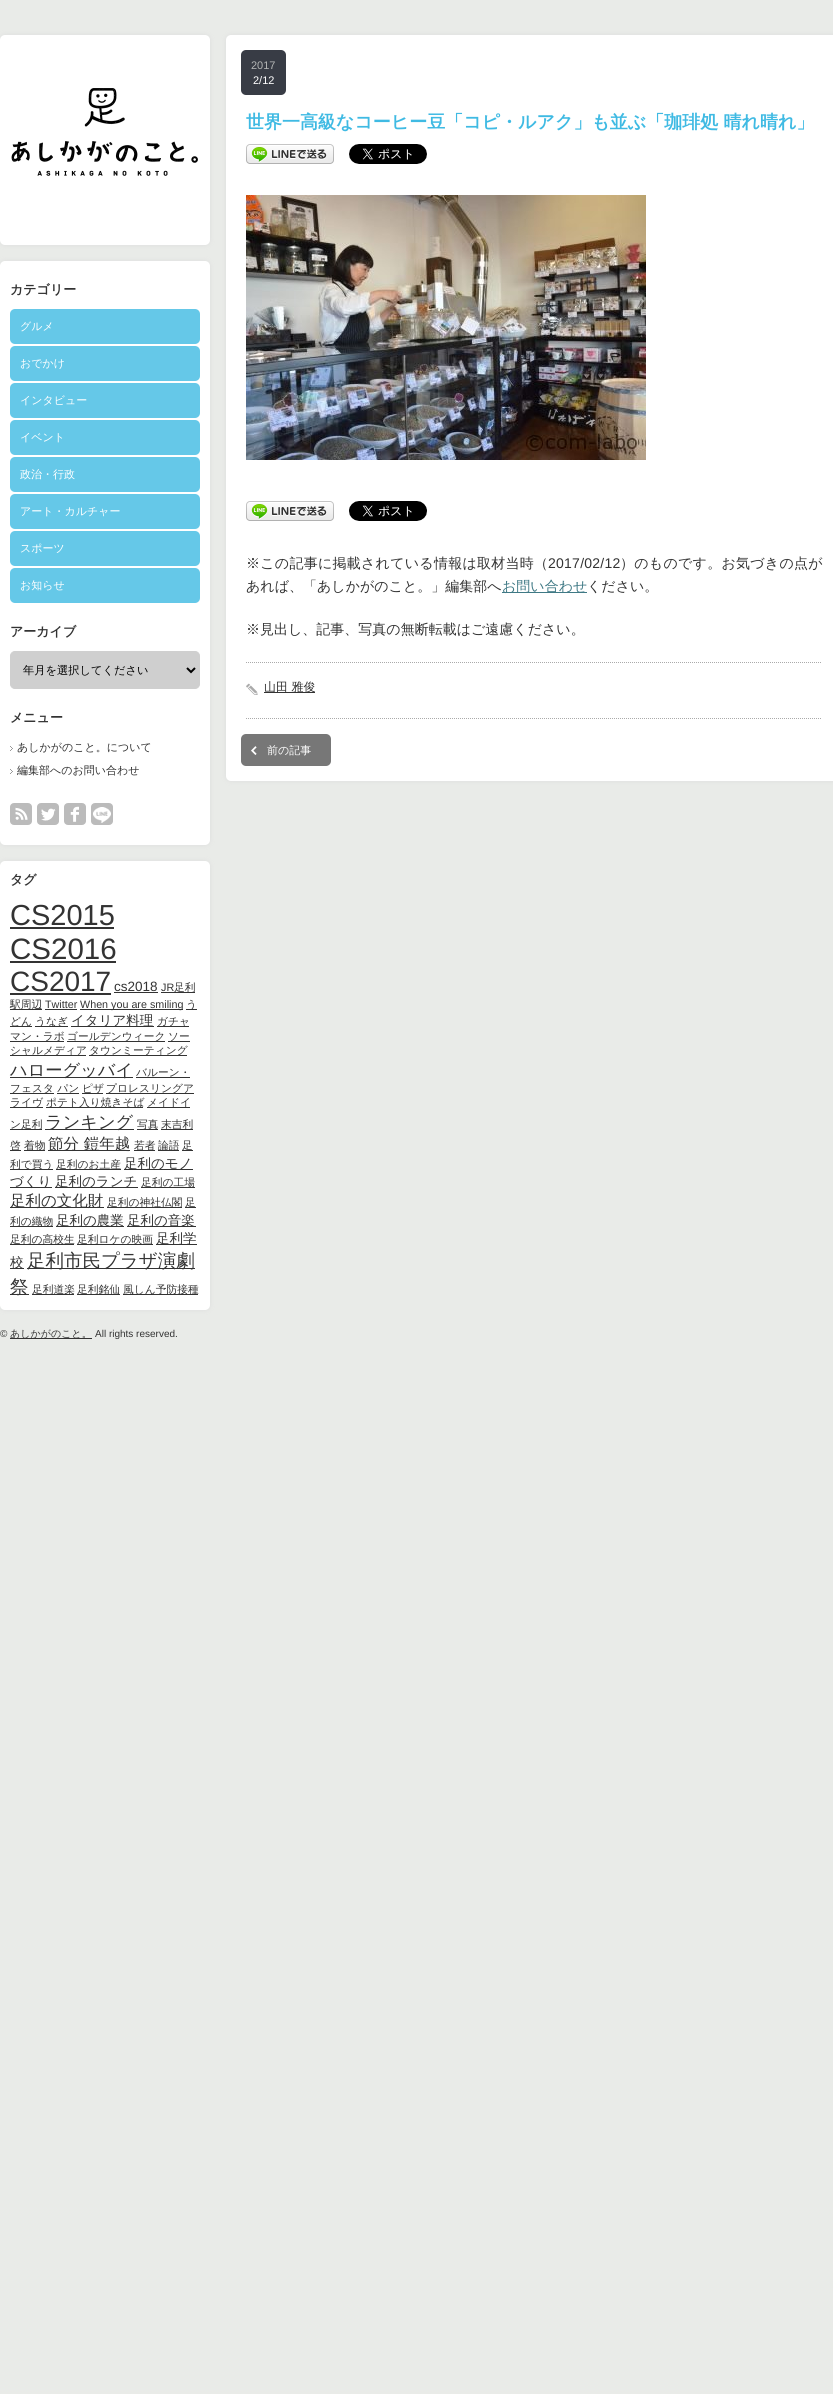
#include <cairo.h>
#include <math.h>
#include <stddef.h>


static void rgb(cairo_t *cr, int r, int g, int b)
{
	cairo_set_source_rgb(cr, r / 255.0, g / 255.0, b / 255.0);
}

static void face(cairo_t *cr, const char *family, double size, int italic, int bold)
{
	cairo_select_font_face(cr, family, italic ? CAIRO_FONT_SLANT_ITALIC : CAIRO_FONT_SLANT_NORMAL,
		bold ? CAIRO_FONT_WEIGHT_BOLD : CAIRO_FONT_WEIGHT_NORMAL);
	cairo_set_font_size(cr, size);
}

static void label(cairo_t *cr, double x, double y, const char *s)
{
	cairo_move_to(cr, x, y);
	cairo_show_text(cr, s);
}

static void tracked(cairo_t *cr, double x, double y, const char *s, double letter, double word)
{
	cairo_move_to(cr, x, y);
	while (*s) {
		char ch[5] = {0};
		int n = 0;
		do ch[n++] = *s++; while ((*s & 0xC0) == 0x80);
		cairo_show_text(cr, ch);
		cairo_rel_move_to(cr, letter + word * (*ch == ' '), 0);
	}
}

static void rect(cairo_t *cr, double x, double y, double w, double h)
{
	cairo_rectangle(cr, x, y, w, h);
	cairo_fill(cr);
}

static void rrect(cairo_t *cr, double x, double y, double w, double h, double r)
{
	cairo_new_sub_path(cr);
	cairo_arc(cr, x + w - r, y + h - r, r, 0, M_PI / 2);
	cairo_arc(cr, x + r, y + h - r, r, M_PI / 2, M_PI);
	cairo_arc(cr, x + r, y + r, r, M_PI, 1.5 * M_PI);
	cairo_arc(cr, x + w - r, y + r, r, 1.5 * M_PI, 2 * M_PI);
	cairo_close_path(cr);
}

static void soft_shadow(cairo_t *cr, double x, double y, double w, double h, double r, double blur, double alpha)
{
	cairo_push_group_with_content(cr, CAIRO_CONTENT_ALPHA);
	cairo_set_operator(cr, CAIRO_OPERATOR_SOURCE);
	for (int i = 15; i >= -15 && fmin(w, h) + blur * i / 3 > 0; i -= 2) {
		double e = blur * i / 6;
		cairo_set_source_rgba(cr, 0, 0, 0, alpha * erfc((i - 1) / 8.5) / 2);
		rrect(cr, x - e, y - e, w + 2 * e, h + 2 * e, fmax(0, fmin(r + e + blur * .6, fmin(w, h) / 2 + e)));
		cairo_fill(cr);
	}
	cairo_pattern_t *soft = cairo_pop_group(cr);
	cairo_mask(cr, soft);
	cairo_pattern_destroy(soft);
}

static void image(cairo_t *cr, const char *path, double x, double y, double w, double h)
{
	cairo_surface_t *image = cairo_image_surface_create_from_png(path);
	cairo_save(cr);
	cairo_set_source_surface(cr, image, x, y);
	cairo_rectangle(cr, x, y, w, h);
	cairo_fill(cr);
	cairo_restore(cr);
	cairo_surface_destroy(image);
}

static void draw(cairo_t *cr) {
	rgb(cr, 233, 235, 232);
	cairo_paint(cr);
	rgb(cr, 221, 221, 221);
	soft_shadow(cr, 0, 35, 210, 210, 5, 2.5, 1);
	rgb(cr, 255, 255, 255);
	rrect(cr, 0, 35, 210, 210, 5);
	cairo_fill(cr);
	image(cr, "image0.png", 11, 88, 187, 88);
	rgb(cr, 221, 221, 221);
	soft_shadow(cr, 0, 261, 210, 584, 5, 2.5, 1);
	rgb(cr, 255, 255, 255);
	rrect(cr, 0, 261, 210, 584, 5);
	cairo_fill(cr);
	face(cr, "WenQuanYi Zen Hei", 13, 0, 1);
	rgb(cr, 51, 51, 51);
	label(cr, 10, 294, "カテゴリー");
	rgb(cr, 101, 200, 232);
	rrect(cr, 10, 309, 190, 35, 5);
	cairo_fill(cr);
	face(cr, "WenQuanYi Zen Hei Medium", 11, 0, 0);
	rgb(cr, 255, 255, 255);
	label(cr, 20, 330, "グルメ");
	rgb(cr, 101, 200, 232);
	rrect(cr, 10, 346, 190, 35, 5);
	cairo_fill(cr);
	rgb(cr, 255, 255, 255);
	label(cr, 20, 367, "おでかけ");
	rgb(cr, 101, 200, 232);
	rrect(cr, 10, 383, 190, 35, 5);
	cairo_fill(cr);
	rgb(cr, 255, 255, 255);
	label(cr, 20, 404, "インタビュー");
	rgb(cr, 101, 200, 232);
	rrect(cr, 10, 420, 190, 35, 5);
	cairo_fill(cr);
	rgb(cr, 255, 255, 255);
	label(cr, 20, 441, "イベント");
	rgb(cr, 101, 200, 232);
	rrect(cr, 10, 457, 190, 35, 5);
	cairo_fill(cr);
	rgb(cr, 255, 255, 255);
	label(cr, 20, 478, "政治・行政");
	rgb(cr, 101, 200, 232);
	rrect(cr, 10, 494, 190, 35, 5);
	cairo_fill(cr);
	rgb(cr, 255, 255, 255);
	label(cr, 20, 515, "アート・カルチャー");
	rgb(cr, 101, 200, 232);
	rrect(cr, 10, 531, 190, 35, 5);
	cairo_fill(cr);
	rgb(cr, 255, 255, 255);
	label(cr, 20, 552, "スポーツ");
	rgb(cr, 101, 200, 232);
	rrect(cr, 10, 568, 190, 35, 5);
	cairo_fill(cr);
	rgb(cr, 255, 255, 255);
	label(cr, 20, 589, "お知らせ");
	face(cr, "WenQuanYi Zen Hei", 13, 0, 1);
	rgb(cr, 51, 51, 51);
	label(cr, 10, 636, "アーカイブ");
	rgb(cr, 207, 207, 207);
	rrect(cr, 10.5, 651.5, 189, 37, 4.5);
	cairo_fill_preserve(cr);
	cairo_set_line_width(cr, 1);
	cairo_stroke(cr);
	cairo_new_path(cr);
	cairo_move_to(cr, 187, 668);
	cairo_line_to(cr, 191, 672);
	cairo_line_to(cr, 195, 668);
	rgb(cr, 0, 0, 0);
	cairo_set_line_width(cr, 2);
	cairo_stroke(cr);
	face(cr, "WenQuanYi Zen Hei Medium", 11.25, 0, 0);
	label(cr, 23, 674, "年月を選択してください");
	face(cr, "WenQuanYi Zen Hei", 13, 0, 1);
	rgb(cr, 51, 51, 51);
	label(cr, 10, 722, "メニュー");
	image(cr, "image1.png", 10, 746, 3, 5);
	face(cr, "WenQuanYi Zen Hei Medium", 11, 0, 0);
	label(cr, 17, 751, "あしかがのこと。について");
	image(cr, "image1.png", 10, 769, 3, 5);
	label(cr, 17, 774, "編集部へのお問い合わせ");
	image(cr, "image2.png", 10, 803, 22, 22);
	image(cr, "image3.png", 37, 803, 22, 22);
	image(cr, "image4.png", 64, 803, 22, 22);
	image(cr, "image5.png", 91, 803, 22, 22);
	rgb(cr, 221, 221, 221);
	soft_shadow(cr, 0, 861, 210, 449, 5, 2.5, 1);
	rgb(cr, 255, 255, 255);
	rrect(cr, 0, 861, 210, 449, 5);
	cairo_fill(cr);
	face(cr, "WenQuanYi Zen Hei", 13, 0, 1);
	rgb(cr, 51, 51, 51);
	label(cr, 10, 884, "タグ");
	face(cr, "Liberation Sans", 29, 0, 0);
	label(cr, 10, 925, "CS2015");
	rect(cr, 10, 927, 104, 2);
	face(cr, "Liberation Sans", 29.5, 0, 0);
	label(cr, 10, 959, "CS2016");
	rect(cr, 10, 961, 106, 2);
	face(cr, "Liberation Sans", 28, 0, 0);
	label(cr, 10, 991, "CS2017");
	rect(cr, 10, 993, 101, 2);
	face(cr, "Liberation Sans", 13.5, 0, 0);
	label(cr, 114, 991, "cs2018");
	rect(cr, 114, 992, 44, 1);
	face(cr, "Liberation Sans", 10.75, 0, 0);
	label(cr, 161, 991, "JR");
	rect(cr, 161, 992, 34, 1);
	face(cr, "WenQuanYi Zen Hei Medium", 10.75, 0, 0);
	label(cr, 174, 991, "足利");
	rect(cr, 10, 1009, 32, 1);
	label(cr, 10, 1008, "駅周辺");
	face(cr, "Liberation Sans", 10.75, 0, 0);
	label(cr, 45, 1008, "Twitter");
	rect(cr, 45, 1009, 32, 1);
	rect(cr, 80, 1009, 103, 1);
	label(cr, 80, 1008, "When you are smiling");
	rect(cr, 186, 1009, 11, 1);
	face(cr, "WenQuanYi Zen Hei Medium", 10.75, 0, 0);
	label(cr, 186, 1008, "う");
	rect(cr, 10, 1026, 22, 1);
	label(cr, 10, 1025, "どん");
	rect(cr, 35, 1026, 33, 1);
	label(cr, 35, 1025, "うなぎ");
	rect(cr, 71, 1026, 83, 1);
	face(cr, "WenQuanYi Zen Hei Medium", 13.5, 0, 0);
	label(cr, 71, 1025, "イタリア料理");
	rect(cr, 157, 1026, 32, 1);
	face(cr, "WenQuanYi Zen Hei Medium", 10.75, 0, 0);
	label(cr, 157, 1025, "ガチャ");
	rect(cr, 10, 1041, 54, 1);
	label(cr, 10, 1040, "マン・ラボ");
	rect(cr, 67, 1041, 98, 1);
	label(cr, 67, 1040, "ゴールデンウィーク");
	rect(cr, 168, 1041, 22, 1);
	label(cr, 168, 1040, "ソー");
	rect(cr, 10, 1055, 76, 1);
	label(cr, 10, 1054, "シャルメディア");
	rect(cr, 89, 1055, 98, 1);
	label(cr, 89, 1054, "タウンミーティング");
	rect(cr, 10, 1077, 123, 1);
	face(cr, "WenQuanYi Zen Hei Medium", 17.25, 0, 0);
	label(cr, 10, 1076, "ハローグッバイ");
	face(cr, "WenQuanYi Zen Hei Medium", 10.75, 0, 0);
	label(cr, 136, 1076, "バルーン・");
	rect(cr, 136, 1077, 54, 1);
	rect(cr, 10, 1093, 44, 1);
	label(cr, 10, 1092, "フェスタ パン");
	rect(cr, 82, 1093, 21, 1);
	label(cr, 82, 1092, "ピザ");
	rect(cr, 106, 1093, 88, 1);
	label(cr, 106, 1092, "プロレスリングア");
	rect(cr, 57, 1093, 22, 1);
	rect(cr, 10, 1107, 33, 1);
	label(cr, 10, 1106, "ライヴ");
	rect(cr, 46, 1107, 97, 1);
	label(cr, 46, 1106, "ポテト入り焼きそば");
	rect(cr, 147, 1107, 43, 1);
	label(cr, 147, 1106, "メイドイ");
	rect(cr, 10, 1129, 32, 1);
	label(cr, 10, 1128, "ン足利");
	rect(cr, 45, 1129, 89, 1);
	face(cr, "WenQuanYi Zen Hei Medium", 17.25, 0, 0);
	label(cr, 45, 1128, "ランキング");
	rect(cr, 137, 1129, 21, 1);
	face(cr, "WenQuanYi Zen Hei Medium", 10.75, 0, 0);
	label(cr, 137, 1128, "写真");
	rect(cr, 161, 1129, 32, 1);
	label(cr, 161, 1128, "末吉利");
	rect(cr, 10, 1150, 11, 1);
	label(cr, 10, 1149, "啓");
	rect(cr, 24, 1150, 21, 1);
	label(cr, 24, 1149, "着物");
	rect(cr, 48, 1150, 82, 1);
	face(cr, "WenQuanYi Zen Hei Medium", 15.5, 0, 0);
	label(cr, 48, 1149, "節分 鎧年越");
	rect(cr, 134, 1150, 21, 1);
	face(cr, "WenQuanYi Zen Hei Medium", 10.75, 0, 0);
	label(cr, 134, 1149, "若者");
	rect(cr, 158, 1150, 21, 1);
	label(cr, 158, 1149, "論語");
	rect(cr, 182, 1150, 11, 1);
	label(cr, 182, 1149, "足");
	rect(cr, 10, 1169, 43, 1);
	label(cr, 10, 1168, "利で買う");
	rect(cr, 56, 1169, 65, 1);
	label(cr, 56, 1168, "足利のお土産");
	rect(cr, 124, 1169, 69, 1);
	face(cr, "WenQuanYi Zen Hei Medium", 13.5, 0, 0);
	label(cr, 124, 1168, "足利のモノ");
	rect(cr, 10, 1187, 42, 1);
	label(cr, 10, 1186, "づくり");
	rect(cr, 55, 1187, 83, 1);
	label(cr, 55, 1186, "足利のランチ");
	rect(cr, 141, 1187, 54, 1);
	face(cr, "WenQuanYi Zen Hei Medium", 10.75, 0, 0);
	label(cr, 141, 1186, "足利の工場");
	rect(cr, 10, 1207, 94, 1);
	face(cr, "WenQuanYi Zen Hei Medium", 15.5, 0, 0);
	label(cr, 10, 1206, "足利の文化財");
	rect(cr, 107, 1207, 75, 1);
	face(cr, "WenQuanYi Zen Hei Medium", 10.75, 0, 0);
	label(cr, 107, 1206, "足利の神社仏閣");
	rect(cr, 185, 1207, 11, 1);
	label(cr, 185, 1206, "足");
	rect(cr, 10, 1226, 43, 1);
	label(cr, 10, 1225, "利の織物");
	rect(cr, 56, 1226, 68, 1);
	face(cr, "WenQuanYi Zen Hei Medium", 13.5, 0, 0);
	label(cr, 56, 1225, "足利の農業");
	rect(cr, 127, 1226, 69, 1);
	label(cr, 127, 1225, "足利の音楽");
	rect(cr, 10, 1244, 64, 1);
	face(cr, "WenQuanYi Zen Hei Medium", 10.75, 0, 0);
	label(cr, 10, 1243, "足利の高校生");
	rect(cr, 77, 1244, 76, 1);
	label(cr, 77, 1243, "足利ロケの映画");
	rect(cr, 156, 1244, 41, 1);
	face(cr, "WenQuanYi Zen Hei Medium", 13.5, 0, 0);
	label(cr, 156, 1243, "足利学");
	rect(cr, 10, 1268, 14, 1);
	label(cr, 10, 1267, "校");
	rect(cr, 27, 1268, 168, 1);
	face(cr, "WenQuanYi Zen Hei Medium", 18.5, 0, 0);
	label(cr, 27, 1267, "足利市民プラザ演劇");
	rect(cr, 10, 1294, 19, 1);
	label(cr, 10, 1293, "祭");
	rect(cr, 32, 1294, 42, 1);
	face(cr, "WenQuanYi Zen Hei Medium", 10.75, 0, 0);
	label(cr, 32, 1293, "足利道楽");
	rect(cr, 77, 1294, 43, 1);
	label(cr, 77, 1293, "足利銘仙");
	rect(cr, 123, 1294, 75, 1);
	label(cr, 123, 1293, "風しん予防接種");
	face(cr, "Liberation Sans", 10, 0, 0);
	label(cr, 0, 1337, "©");
	rect(cr, 10, 1338, 82, 1);
	face(cr, "WenQuanYi Zen Hei Medium", 10, 0, 0);
	label(cr, 10, 1337, "あしかがのこと。");
	face(cr, "Liberation Sans", 10, 0, 0);
	label(cr, 95, 1337, "All rights reserved.");
	rgb(cr, 221, 221, 221);
	soft_shadow(cr, 226, 35, 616, 746, 5, 2.5, 1);
	rgb(cr, 255, 255, 255);
	rrect(cr, 226, 35, 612, 746, 5);
	cairo_fill(cr);
	rgb(cr, 56, 60, 69);
	rrect(cr, 241, 50, 45, 45, 5);
	cairo_fill(cr);
	face(cr, "Liberation Sans", 11, 0, 0);
	rgb(cr, 179, 181, 180);
	label(cr, 251, 69, "2017");
	rgb(cr, 255, 255, 255);
	label(cr, 253, 84, "2/12");
	face(cr, "WenQuanYi Zen Hei", 18, 0, 1);
	rgb(cr, 63, 186, 227);
	label(cr, 246, 128, "世界一高級なコーヒー豆「コピ・ルアク」も並ぶ「珈琲処 晴れ晴れ」");
	image(cr, "image6.png", 246, 144, 88, 20);
	image(cr, "image7.png", 349, 144, 78, 20);
	image(cr, "image8.png", 246, 195, 400, 265);
	image(cr, "image6.png", 246, 501, 88, 20);
	image(cr, "image9.png", 349, 501, 78, 20);
	face(cr, "WenQuanYi Zen Hei Medium", 14, 0, 0);
	rgb(cr, 51, 51, 51);
	tracked(cr, 246, 568, "※この記事に掲載されている情報は取材当時（", 0.25, 0);
	face(cr, "Liberation Sans", 14, 0, 0);
	tracked(cr, 548, 568, "2017/02/12", 0.25, 0);
	face(cr, "WenQuanYi Zen Hei Medium", 14, 0, 0);
	tracked(cr, 620, 568, "）のものです。お気づきの点が", 0.25, 0);
	label(cr, 246, 591, "あれば、「あしかがのこと。」編集部へ");
	rgb(cr, 63, 121, 133);
	rect(cr, 502, 592, 85, 1);
	label(cr, 502, 591, "お問い合わせ");
	rgb(cr, 51, 51, 51);
	label(cr, 587, 591, "ください。");
	label(cr, 246, 634, "※見出し、記事、写真の無断転載はご遠慮ください。");
	cairo_new_path(cr);
	cairo_move_to(cr, 246, 662.5);
	cairo_line_to(cr, 822, 662.5);
	rgb(cr, 170, 170, 170);
	cairo_set_line_width(cr, 1);
	cairo_set_dash(cr, (double[]){1, 1}, 2, 0);
	cairo_stroke(cr);
	cairo_new_path(cr);
	cairo_move_to(cr, 246, 718.5);
	cairo_line_to(cr, 822, 718.5);
	cairo_stroke(cr);
	image(cr, "image10.png", 246, 683, 12, 12);
	rgb(cr, 51, 51, 51);
	rect(cr, 264, 692, 51, 1);
	face(cr, "WenQuanYi Zen Hei Medium", 12, 0, 0);
	label(cr, 264, 691, "山田 雅俊");
	rgb(cr, 119, 119, 119);
	rrect(cr, 241, 734, 90, 32, 5);
	cairo_fill(cr);
	image(cr, "image11.png", 251, 746, 6, 9);
	face(cr, "WenQuanYi Zen Hei Medium", 11, 0, 0);
	rgb(cr, 255, 255, 255);
	label(cr, 267, 754, "前の記事");
}

int main(void) {
	cairo_surface_t *surface = cairo_image_surface_create(CAIRO_FORMAT_RGB24, 833, 2394);
	cairo_t *cr = cairo_create(surface);
	cairo_font_options_t *options = cairo_font_options_create();
	cairo_font_options_set_hint_metrics(options, CAIRO_HINT_METRICS_OFF);
	cairo_font_options_set_hint_style(options, CAIRO_HINT_STYLE_NONE);
	cairo_set_font_options(cr, options);
	cairo_set_miter_limit(cr, 4);
	draw(cr);
	cairo_surface_write_to_png(surface, "render.png");
	cairo_font_options_destroy(options);
	cairo_destroy(cr);
	cairo_surface_destroy(surface);
	return 0;
}
